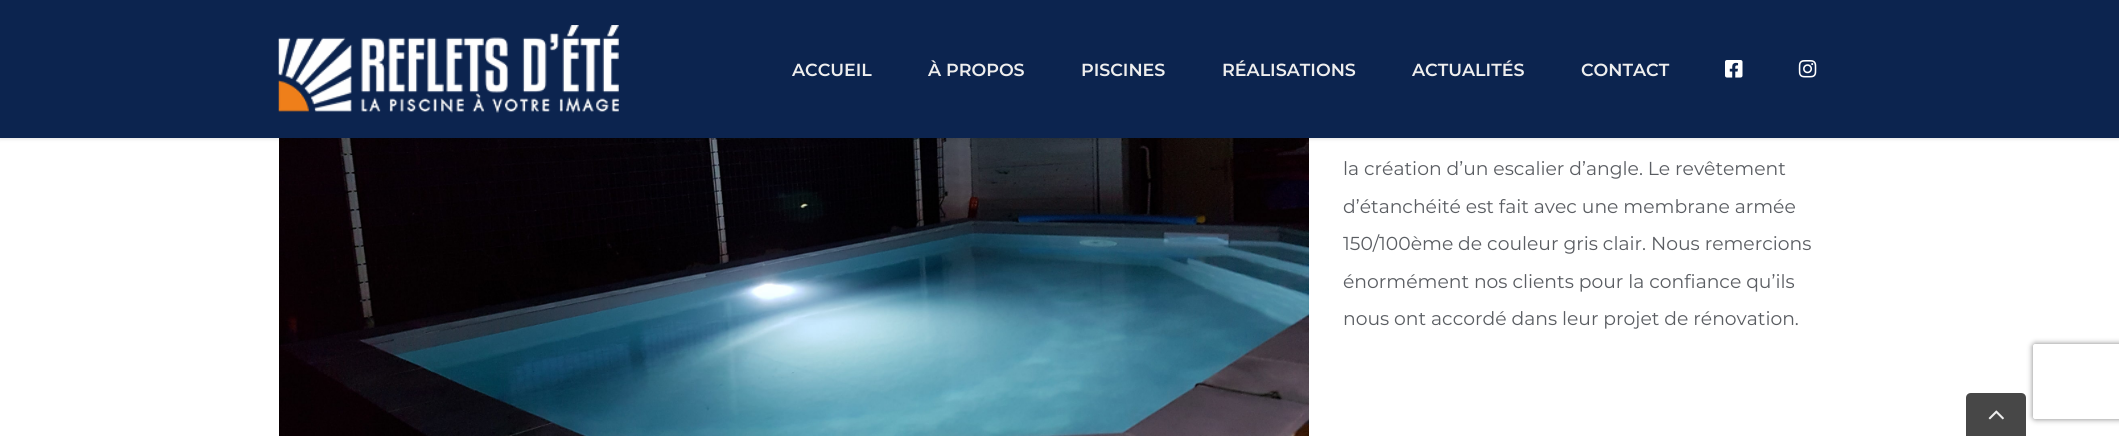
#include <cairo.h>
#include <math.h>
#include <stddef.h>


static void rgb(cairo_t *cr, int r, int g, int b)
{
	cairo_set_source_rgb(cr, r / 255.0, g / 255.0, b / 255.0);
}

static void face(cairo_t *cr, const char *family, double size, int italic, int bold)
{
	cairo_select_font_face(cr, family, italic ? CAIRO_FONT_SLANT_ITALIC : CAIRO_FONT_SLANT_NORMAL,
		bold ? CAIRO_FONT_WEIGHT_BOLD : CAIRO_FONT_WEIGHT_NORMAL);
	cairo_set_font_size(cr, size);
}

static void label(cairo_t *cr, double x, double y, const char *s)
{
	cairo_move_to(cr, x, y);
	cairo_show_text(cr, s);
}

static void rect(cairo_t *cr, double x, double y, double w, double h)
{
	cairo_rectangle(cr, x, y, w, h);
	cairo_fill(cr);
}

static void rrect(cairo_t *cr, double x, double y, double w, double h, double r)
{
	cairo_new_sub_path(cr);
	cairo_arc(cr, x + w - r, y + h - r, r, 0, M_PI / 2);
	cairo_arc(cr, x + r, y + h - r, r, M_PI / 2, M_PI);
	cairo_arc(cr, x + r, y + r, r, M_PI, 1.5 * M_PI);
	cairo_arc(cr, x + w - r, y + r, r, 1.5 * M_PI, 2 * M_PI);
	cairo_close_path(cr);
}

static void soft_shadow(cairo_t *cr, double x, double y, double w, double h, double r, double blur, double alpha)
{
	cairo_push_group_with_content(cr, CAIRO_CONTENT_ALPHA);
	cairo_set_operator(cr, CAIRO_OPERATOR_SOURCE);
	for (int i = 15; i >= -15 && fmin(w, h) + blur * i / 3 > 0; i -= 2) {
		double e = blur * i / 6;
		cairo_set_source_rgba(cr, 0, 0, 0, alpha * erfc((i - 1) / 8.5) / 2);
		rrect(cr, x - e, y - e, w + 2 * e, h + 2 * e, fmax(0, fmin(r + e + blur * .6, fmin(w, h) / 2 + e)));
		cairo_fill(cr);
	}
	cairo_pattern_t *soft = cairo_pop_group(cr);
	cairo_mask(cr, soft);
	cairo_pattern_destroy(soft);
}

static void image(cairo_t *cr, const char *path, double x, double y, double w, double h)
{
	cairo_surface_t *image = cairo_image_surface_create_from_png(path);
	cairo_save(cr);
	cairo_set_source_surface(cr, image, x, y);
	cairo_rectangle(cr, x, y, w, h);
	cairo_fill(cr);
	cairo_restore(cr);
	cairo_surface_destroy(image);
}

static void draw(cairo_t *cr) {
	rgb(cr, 255, 255, 255);
	cairo_paint(cr);
	image(cr, "image3.png", 279, 138, 1030, 298);
	rgb(cr, 0, 0, 0);
	soft_shadow(cr, 0, 1, 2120, 138, 0, 2, 0.12);
	rgb(cr, 12, 36, 79);
	rect(cr, 0, 0, 2119, 138);
	image(cr, "image0.png", 278, 25, 341, 88);
	face(cr, "Montserrat SemiBold", 17.5, 0, 0);
	rgb(cr, 238, 238, 238);
	label(cr, 792, 76, "ACCUEIL");
	label(cr, 928, 76, "À PROPOS");
	label(cr, 1081, 76, "PISCINES");
	label(cr, 1222, 76, "RÉALISATIONS");
	label(cr, 1412, 76, "ACTUALITÉS");
	label(cr, 1581, 76, "CONTACT");
	image(cr, "image1.png", 1725, 60, 18, 18);
	image(cr, "image2.png", 1798, 60, 19, 18);
	face(cr, "Montserrat", 18.75, 0, 0);
	rgb(cr, 90, 93, 98);
	label(cr, 1343, 175, "la création d’un escalier d’angle. Le revêtement");
	label(cr, 1343, 213, "d’étanchéité est fait avec une membrane armée");
	label(cr, 1343, 250, "150/100ème de couleur gris clair. Nous remercions");
	label(cr, 1343, 288, "énormément nos clients pour la confiance qu’ils");
	label(cr, 1343, 325, "nous ont accordé dans leur projet de rénovation.");
	cairo_save(cr);
	cairo_set_fill_rule(cr, CAIRO_FILL_RULE_EVEN_ODD);
	cairo_new_path(cr);
	cairo_move_to(cr, 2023, 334);
	cairo_line_to(cr, 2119, 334);
	cairo_line_to(cr, 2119, 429);
	cairo_line_to(cr, 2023, 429);
	cairo_close_path(cr);
	cairo_move_to(cr, 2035.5, 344);
	cairo_line_to(cr, 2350.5, 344);
	cairo_curve_to(cr, 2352, 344, 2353, 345, 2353, 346.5);
	cairo_line_to(cr, 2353, 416.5);
	cairo_curve_to(cr, 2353, 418, 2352, 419, 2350.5, 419);
	cairo_line_to(cr, 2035.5, 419);
	cairo_curve_to(cr, 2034, 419, 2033, 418, 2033, 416.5);
	cairo_line_to(cr, 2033, 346.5);
	cairo_curve_to(cr, 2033, 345, 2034, 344, 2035.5, 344);
	cairo_close_path(cr);
	cairo_clip(cr);
	rgb(cr, 128, 128, 128);
	soft_shadow(cr, 2033, 344, 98, 75, 2.5, 3, 1);
	cairo_restore(cr);
	rgb(cr, 71, 71, 71);
	cairo_new_path(cr);
	cairo_move_to(cr, 1971, 393);
	cairo_line_to(cr, 2021, 393);
	cairo_curve_to(cr, 2024, 393, 2026, 395, 2026, 398);
	cairo_line_to(cr, 2026, 436);
	cairo_line_to(cr, 1966, 436);
	cairo_line_to(cr, 1966, 398);
	cairo_curve_to(cr, 1966, 395, 1968, 393, 1971, 393);
	cairo_close_path(cr);
	cairo_fill(cr);
	image(cr, "image4.png", 1988, 410, 16, 10);
}

int main(void) {
	cairo_surface_t *surface = cairo_image_surface_create(CAIRO_FORMAT_RGB24, 2119, 436);
	cairo_t *cr = cairo_create(surface);
	cairo_font_options_t *options = cairo_font_options_create();
	cairo_font_options_set_hint_metrics(options, CAIRO_HINT_METRICS_OFF);
	cairo_font_options_set_hint_style(options, CAIRO_HINT_STYLE_NONE);
	cairo_set_font_options(cr, options);
	cairo_set_miter_limit(cr, 4);
	draw(cr);
	cairo_surface_write_to_png(surface, "render.png");
	cairo_font_options_destroy(options);
	cairo_destroy(cr);
	cairo_surface_destroy(surface);
	return 0;
}
